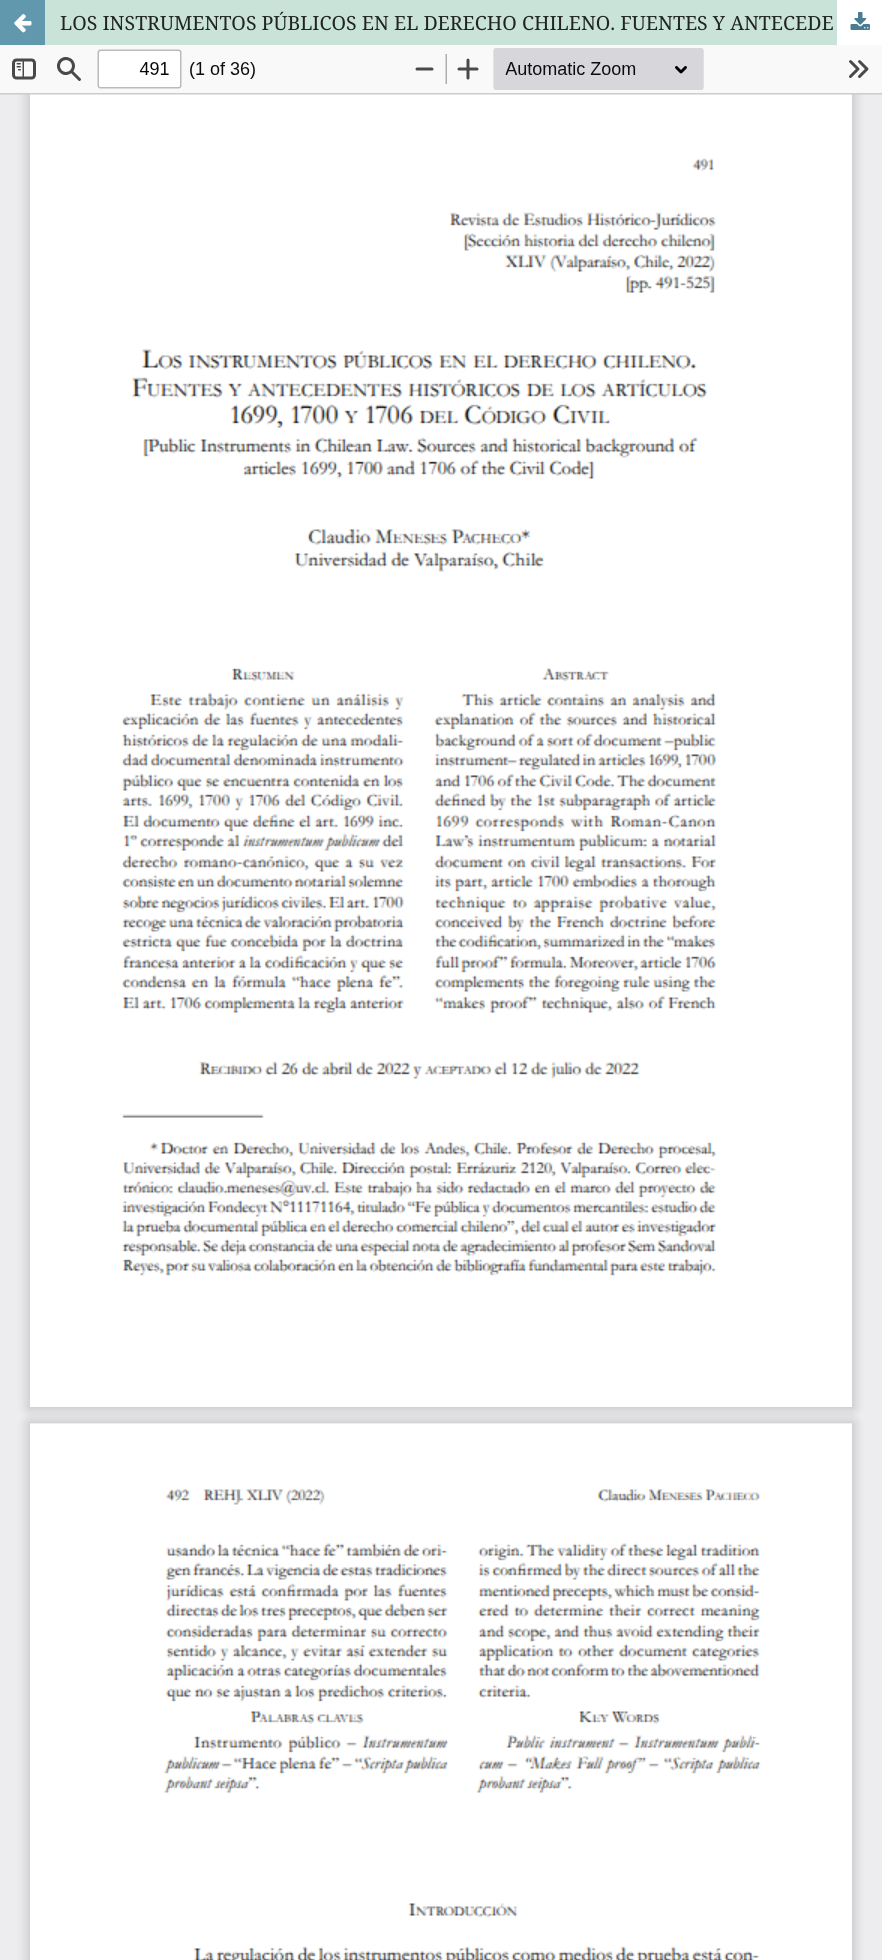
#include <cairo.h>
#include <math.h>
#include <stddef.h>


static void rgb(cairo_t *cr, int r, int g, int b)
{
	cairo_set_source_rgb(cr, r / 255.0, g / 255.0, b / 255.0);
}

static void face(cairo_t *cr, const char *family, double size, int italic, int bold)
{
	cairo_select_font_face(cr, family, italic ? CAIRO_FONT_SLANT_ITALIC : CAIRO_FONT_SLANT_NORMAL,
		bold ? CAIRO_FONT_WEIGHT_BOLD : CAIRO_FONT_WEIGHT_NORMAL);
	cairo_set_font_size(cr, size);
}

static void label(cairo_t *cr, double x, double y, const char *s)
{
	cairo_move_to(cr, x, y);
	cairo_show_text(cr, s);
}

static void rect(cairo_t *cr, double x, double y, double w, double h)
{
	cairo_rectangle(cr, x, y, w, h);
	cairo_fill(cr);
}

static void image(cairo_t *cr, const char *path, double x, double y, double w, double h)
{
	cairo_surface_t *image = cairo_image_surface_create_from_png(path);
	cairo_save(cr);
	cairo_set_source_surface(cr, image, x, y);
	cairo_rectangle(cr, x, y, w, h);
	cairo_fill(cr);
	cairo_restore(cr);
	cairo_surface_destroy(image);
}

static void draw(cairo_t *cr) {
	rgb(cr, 255, 255, 255);
	cairo_paint(cr);
	rgb(cr, 201, 227, 216);
	rect(cr, 45, 0, 792, 45);
	rgb(cr, 98, 152, 174);
	rect(cr, 0, 0, 45, 45);
	image(cr, "image0.png", 14, 14, 18, 19);
	face(cr, "Noto Serif", 19.55, 0, 0);
	rgb(cr, 32, 36, 35);
	label(cr, 60, 30, "LOS INSTRUMENTOS PÚBLICOS EN EL DERECHO CHILENO. FUENTES Y ANTECEDE");
	image(cr, "image1.png", 850, 12, 20, 18);
	image(cr, "image2.png", 0, 45, 882, 1915);
}

int main(void) {
	cairo_surface_t *surface = cairo_image_surface_create(CAIRO_FORMAT_RGB24, 882, 1960);
	cairo_t *cr = cairo_create(surface);
	cairo_font_options_t *options = cairo_font_options_create();
	cairo_font_options_set_hint_metrics(options, CAIRO_HINT_METRICS_OFF);
	cairo_font_options_set_hint_style(options, CAIRO_HINT_STYLE_NONE);
	cairo_set_font_options(cr, options);
	cairo_set_miter_limit(cr, 4);
	draw(cr);
	cairo_surface_write_to_png(surface, "render.png");
	cairo_font_options_destroy(options);
	cairo_destroy(cr);
	cairo_surface_destroy(surface);
	return 0;
}
